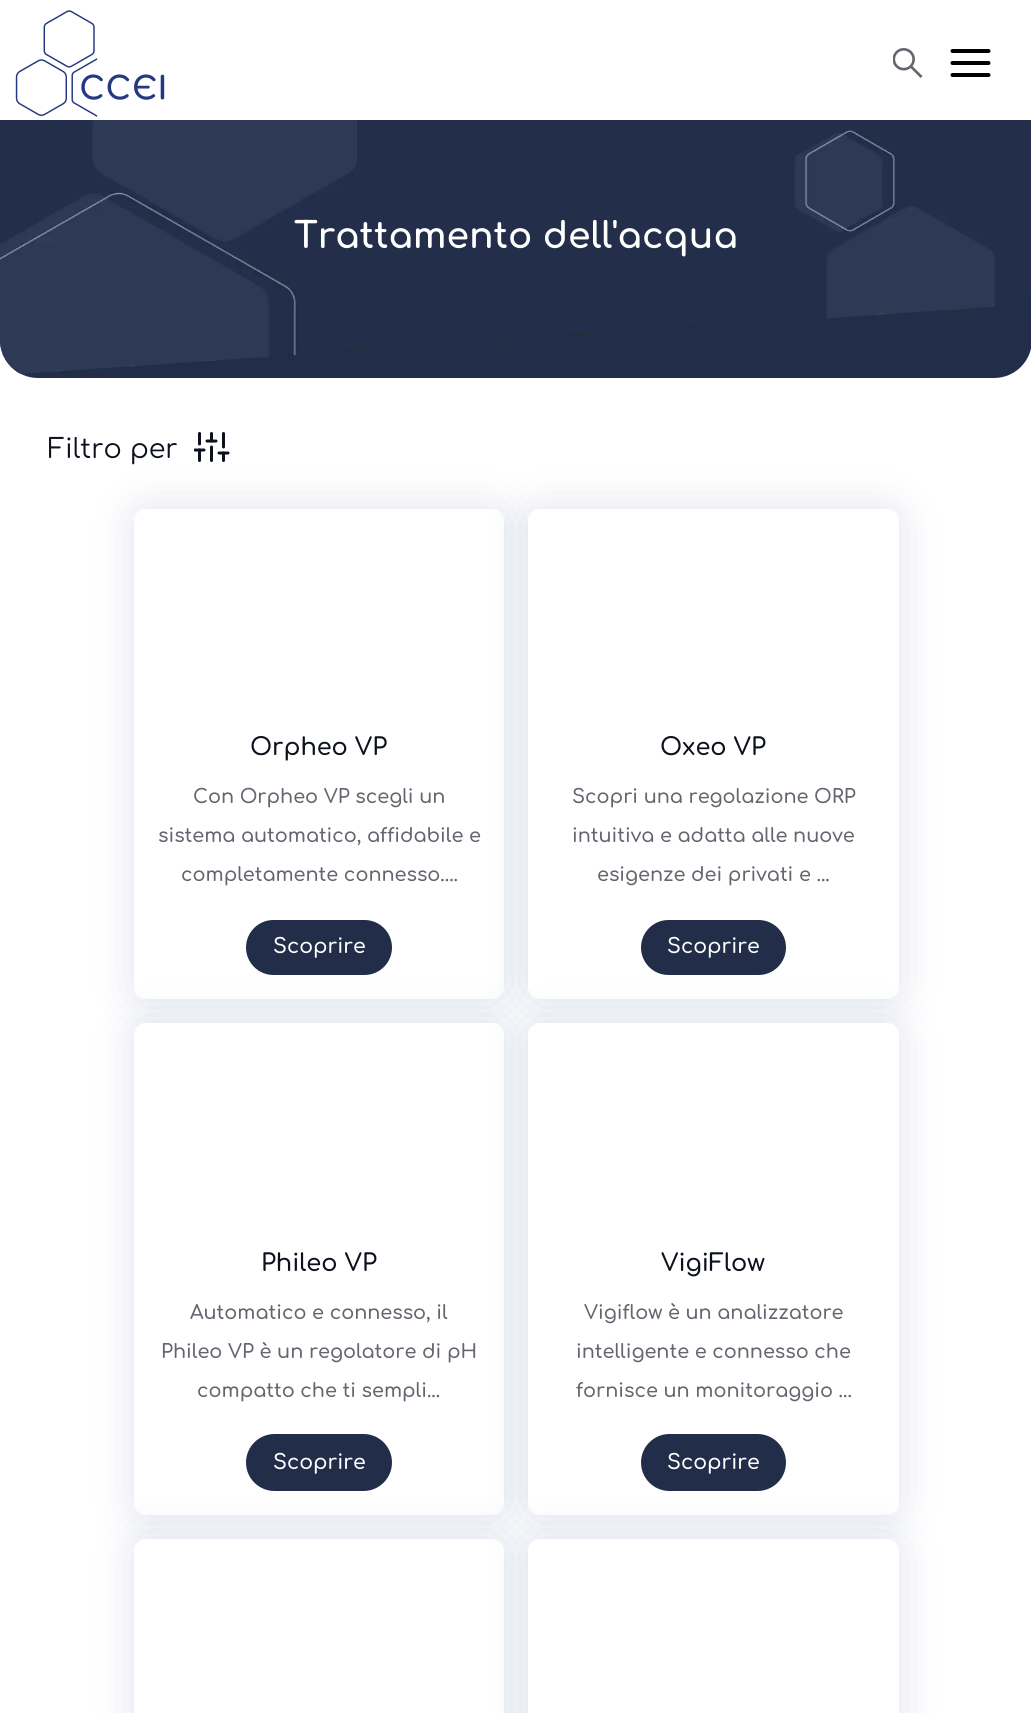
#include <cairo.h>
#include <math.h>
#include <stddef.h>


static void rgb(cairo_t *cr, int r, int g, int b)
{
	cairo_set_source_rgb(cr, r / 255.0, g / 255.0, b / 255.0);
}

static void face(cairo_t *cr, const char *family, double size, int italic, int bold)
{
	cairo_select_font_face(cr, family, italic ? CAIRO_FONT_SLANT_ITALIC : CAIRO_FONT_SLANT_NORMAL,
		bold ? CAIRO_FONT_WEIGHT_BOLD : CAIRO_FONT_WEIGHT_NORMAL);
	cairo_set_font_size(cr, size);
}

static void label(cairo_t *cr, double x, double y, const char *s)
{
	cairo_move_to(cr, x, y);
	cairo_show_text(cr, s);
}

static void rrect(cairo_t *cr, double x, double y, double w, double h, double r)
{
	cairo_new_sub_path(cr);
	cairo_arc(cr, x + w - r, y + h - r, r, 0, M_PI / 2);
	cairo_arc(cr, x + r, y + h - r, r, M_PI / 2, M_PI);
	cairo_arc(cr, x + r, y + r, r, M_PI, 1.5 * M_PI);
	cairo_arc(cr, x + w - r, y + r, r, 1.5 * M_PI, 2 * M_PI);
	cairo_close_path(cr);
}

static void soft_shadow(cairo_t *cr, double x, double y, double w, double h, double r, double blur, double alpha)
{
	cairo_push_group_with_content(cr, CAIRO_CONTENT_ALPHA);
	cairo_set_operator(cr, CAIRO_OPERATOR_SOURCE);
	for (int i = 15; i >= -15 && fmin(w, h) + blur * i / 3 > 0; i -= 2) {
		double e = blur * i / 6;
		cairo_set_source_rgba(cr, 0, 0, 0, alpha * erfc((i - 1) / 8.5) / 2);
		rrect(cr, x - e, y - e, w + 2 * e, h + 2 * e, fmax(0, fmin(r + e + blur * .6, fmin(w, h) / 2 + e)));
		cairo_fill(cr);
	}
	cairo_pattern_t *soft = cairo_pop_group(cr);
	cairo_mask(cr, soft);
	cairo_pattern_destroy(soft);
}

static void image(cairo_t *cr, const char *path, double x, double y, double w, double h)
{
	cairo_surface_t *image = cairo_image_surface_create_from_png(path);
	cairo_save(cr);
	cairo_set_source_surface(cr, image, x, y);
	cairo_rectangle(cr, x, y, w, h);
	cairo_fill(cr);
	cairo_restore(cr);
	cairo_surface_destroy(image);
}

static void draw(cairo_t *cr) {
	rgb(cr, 255, 255, 255);
	cairo_paint(cr);
	image(cr, "image0.png", 15, 10, 150, 107);
	image(cr, "image1.png", 893, 48, 30, 30);
	cairo_new_path(cr);
	cairo_move_to(cr, 952.5, 63);
	cairo_line_to(cr, 988.5, 63);
	cairo_move_to(cr, 952.5, 51);
	cairo_line_to(cr, 988.5, 51);
	cairo_move_to(cr, 952.5, 75);
	cairo_line_to(cr, 988.5, 75);
	rgb(cr, 0, 0, 0);
	cairo_set_line_width(cr, 4);
	cairo_set_line_cap(cr, CAIRO_LINE_CAP_ROUND);
	cairo_set_line_join(cr, CAIRO_LINE_JOIN_ROUND);
	cairo_stroke(cr);
	rgb(cr, 34, 46, 73);
	cairo_new_path(cr);
	cairo_move_to(cr, 0, 120);
	cairo_line_to(cr, 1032, 120);
	cairo_line_to(cr, 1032, 340);
	cairo_curve_to(cr, 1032, 361, 1015, 378, 994, 378);
	cairo_line_to(cr, 38, 378);
	cairo_curve_to(cr, 17, 378, 0, 361, 0, 340);
	cairo_close_path(cr);
	cairo_fill(cr);
	image(cr, "image2.png", 0, 120, 1030, 254);
	face(cr, "Comfortaa", 36, 0, 1);
	rgb(cr, 255, 255, 255);
	label(cr, 294, 248, "Trattamento dell'acqua");
	face(cr, "Comfortaa", 27, 0, 0);
	rgb(cr, 12, 17, 29);
	label(cr, 48, 458, "Filtro per");
	rgb(cr, 44, 67, 141);
	soft_shadow(cr, 134, 509, 370, 490, 12, 22.5, 0.15);
	image(cr, "image3.png", 194, 432, 36, 30);
	rgb(cr, 255, 255, 255);
	rrect(cr, 134, 509, 370, 490, 12);
	cairo_fill(cr);
	face(cr, "Comfortaa SemiBold", 24, 0, 0);
	rgb(cr, 12, 17, 29);
	label(cr, 250, 755, "Orpheo VP");
	face(cr, "Comfortaa SemiBold", 19.25, 0, 0);
	rgb(cr, 99, 102, 111);
	label(cr, 193, 803, "Con Orpheo VP scegli un");
	label(cr, 158, 842, "sistema automatico, affidabile e");
	label(cr, 181, 881, "completamente connesso....");
	rgb(cr, 44, 67, 141);
	soft_shadow(cr, 528, 509, 371, 490, 12, 22.5, 0.15);
	rgb(cr, 255, 255, 255);
	rrect(cr, 528, 509, 371, 490, 12);
	cairo_fill(cr);
	rgb(cr, 44, 67, 141);
	soft_shadow(cr, 134, 1023, 370, 492, 12, 22.5, 0.15);
	rgb(cr, 34, 46, 73);
	rrect(cr, 246, 920, 146, 55, 27.5);
	cairo_fill(cr);
	face(cr, "Comfortaa SemiBold", 20.5, 0, 0);
	rgb(cr, 255, 255, 255);
	label(cr, 273, 953, "Scoprire");
	face(cr, "Comfortaa SemiBold", 24, 0, 0);
	rgb(cr, 12, 17, 29);
	label(cr, 660, 755, "Oxeo VP");
	face(cr, "Comfortaa SemiBold", 19.25, 0, 0);
	rgb(cr, 99, 102, 111);
	label(cr, 572, 803, "Scopri una regolazione ORP");
	label(cr, 572, 842, "intuitiva e adatta alle nuove");
	label(cr, 597, 881, "esigenze dei privati e ...");
	rgb(cr, 255, 255, 255);
	rrect(cr, 134, 1023, 370, 492, 12);
	cairo_fill(cr);
	rgb(cr, 44, 67, 141);
	soft_shadow(cr, 528, 1023, 371, 492, 12, 22.5, 0.15);
	rgb(cr, 34, 46, 73);
	rrect(cr, 641, 920, 145, 55, 27.5);
	cairo_fill(cr);
	face(cr, "Comfortaa SemiBold", 20.5, 0, 0);
	rgb(cr, 255, 255, 255);
	label(cr, 667, 953, "Scoprire");
	face(cr, "Comfortaa SemiBold", 24, 0, 0);
	rgb(cr, 12, 17, 29);
	label(cr, 261, 1271, "Phileo VP");
	face(cr, "Comfortaa SemiBold", 19.25, 0, 0);
	rgb(cr, 99, 102, 111);
	label(cr, 190, 1319, "Automatico e connesso, il");
	label(cr, 161, 1358, "Phileo VP è un regolatore di pH");
	label(cr, 197, 1397, "compatto che ti sempli...");
	rgb(cr, 255, 255, 255);
	rrect(cr, 528, 1023, 371, 492, 12);
	cairo_fill(cr);
	rgb(cr, 44, 67, 141);
	soft_shadow(cr, 134, 1539, 370, 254, 12, 22.5, 0.15);
	rgb(cr, 34, 46, 73);
	rrect(cr, 246, 1434, 146, 57, 28.5);
	cairo_fill(cr);
	face(cr, "Comfortaa SemiBold", 20.5, 0, 0);
	rgb(cr, 255, 255, 255);
	label(cr, 273, 1469, "Scoprire");
	face(cr, "Comfortaa SemiBold", 24, 0, 0);
	rgb(cr, 12, 17, 29);
	label(cr, 661, 1271, "VigiFlow");
	face(cr, "Comfortaa SemiBold", 19.25, 0, 0);
	rgb(cr, 99, 102, 111);
	label(cr, 584, 1319, "Vigiflow è un analizzatore");
	label(cr, 576, 1358, "intelligente e connesso che");
	label(cr, 576, 1397, "fornisce un monitoraggio ...");
	rgb(cr, 255, 255, 255);
	rrect(cr, 134, 1539, 370, 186, 12);
	cairo_fill(cr);
	rgb(cr, 44, 67, 141);
	soft_shadow(cr, 528, 1539, 371, 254, 12, 22.5, 0.15);
	rgb(cr, 34, 46, 73);
	rrect(cr, 641, 1434, 145, 57, 28.5);
	cairo_fill(cr);
	face(cr, "Comfortaa SemiBold", 20.5, 0, 0);
	rgb(cr, 255, 255, 255);
	label(cr, 667, 1469, "Scoprire");
	rrect(cr, 528, 1539, 371, 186, 12);
	cairo_fill(cr);
}

int main(void) {
	cairo_surface_t *surface = cairo_image_surface_create(CAIRO_FORMAT_RGB24, 1031, 1713);
	cairo_t *cr = cairo_create(surface);
	cairo_font_options_t *options = cairo_font_options_create();
	cairo_font_options_set_hint_metrics(options, CAIRO_HINT_METRICS_OFF);
	cairo_font_options_set_hint_style(options, CAIRO_HINT_STYLE_NONE);
	cairo_set_font_options(cr, options);
	cairo_set_miter_limit(cr, 4);
	draw(cr);
	cairo_surface_write_to_png(surface, "render.png");
	cairo_font_options_destroy(options);
	cairo_destroy(cr);
	cairo_surface_destroy(surface);
	return 0;
}
